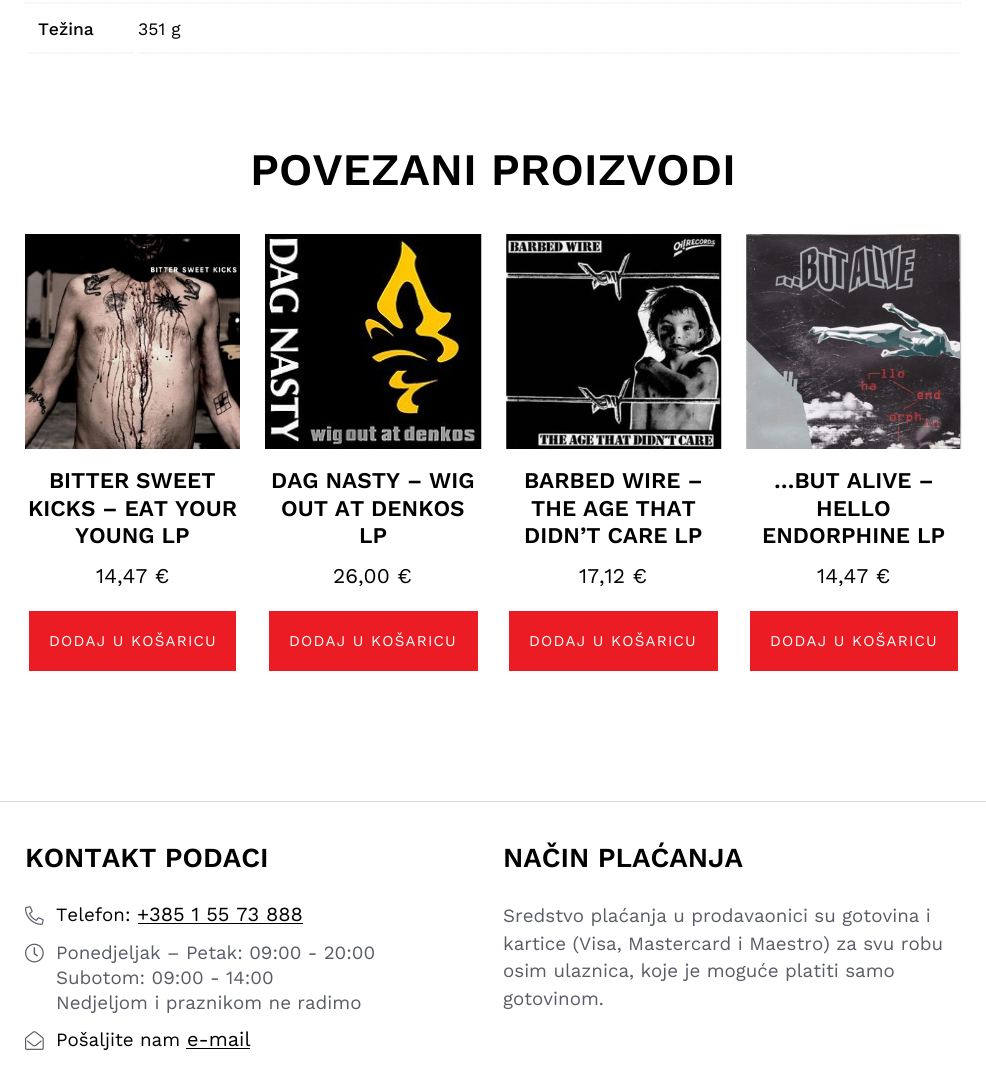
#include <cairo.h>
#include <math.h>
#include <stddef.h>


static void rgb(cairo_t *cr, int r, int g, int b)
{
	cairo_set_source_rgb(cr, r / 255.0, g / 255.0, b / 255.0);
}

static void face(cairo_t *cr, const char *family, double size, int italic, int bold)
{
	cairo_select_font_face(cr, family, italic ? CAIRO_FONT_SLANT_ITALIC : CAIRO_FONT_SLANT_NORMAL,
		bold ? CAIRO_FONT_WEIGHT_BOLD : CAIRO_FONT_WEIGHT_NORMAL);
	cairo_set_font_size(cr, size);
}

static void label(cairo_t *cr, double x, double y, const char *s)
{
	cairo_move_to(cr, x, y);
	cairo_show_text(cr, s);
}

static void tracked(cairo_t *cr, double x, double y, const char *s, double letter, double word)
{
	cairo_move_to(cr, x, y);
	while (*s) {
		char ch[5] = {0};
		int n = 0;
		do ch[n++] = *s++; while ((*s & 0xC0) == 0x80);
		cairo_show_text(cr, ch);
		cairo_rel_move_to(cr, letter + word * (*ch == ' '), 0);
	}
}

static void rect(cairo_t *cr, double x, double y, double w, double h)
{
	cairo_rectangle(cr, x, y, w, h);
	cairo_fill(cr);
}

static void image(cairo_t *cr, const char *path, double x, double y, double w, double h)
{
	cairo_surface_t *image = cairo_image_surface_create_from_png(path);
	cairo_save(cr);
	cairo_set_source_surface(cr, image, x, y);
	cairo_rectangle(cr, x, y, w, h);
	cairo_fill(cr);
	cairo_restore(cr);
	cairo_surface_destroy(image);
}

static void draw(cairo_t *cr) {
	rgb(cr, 255, 255, 255);
	cairo_paint(cr);
	cairo_new_path(cr);
	cairo_move_to(cr, 25, 3);
	cairo_line_to(cr, 961, 3);
	rgb(cr, 230, 230, 230);
	cairo_set_line_width(cr, 1.2);
	cairo_set_dash(cr, (double[]){1.25, 1.25}, 2, 0);
	cairo_stroke(cr);
	cairo_new_path(cr);
	cairo_move_to(cr, 27.5, 53);
	cairo_line_to(cr, 135, 53);
	cairo_stroke(cr);
	face(cr, "Work Sans Medium", 17.5, 0, 0);
	rgb(cr, 0, 0, 0);
	label(cr, 38, 35, "Težina");
	cairo_new_path(cr);
	cairo_move_to(cr, 137.5, 53);
	cairo_line_to(cr, 959, 53);
	rgb(cr, 230, 230, 230);
	cairo_stroke(cr);
	face(cr, "Work Sans", 17.5, 0, 0);
	rgb(cr, 0, 0, 0);
	label(cr, 138, 35, "351 g");
	face(cr, "Work Sans SemiBold", 45, 0, 0);
	label(cr, 250, 185, "POVEZANI PROIZVODI");
	image(cr, "image0.png", 25, 234, 215, 215);
	face(cr, "Work Sans SemiBold", 22.5, 0, 0);
	label(cr, 49, 488, "BITTER SWEET");
	label(cr, 28, 516, "KICKS – EAT YOUR");
	label(cr, 75, 543, "YOUNG LP");
	face(cr, "Work Sans", 21, 0, 0);
	label(cr, 96, 583, "14,47 €");
	rgb(cr, 235, 28, 36);
	rect(cr, 29, 611, 207, 60);
	face(cr, "Work Sans", 15, 0, 0);
	rgb(cr, 255, 255, 255);
	tracked(cr, 49, 646, "DODAJ U KOŠARICU", 1.25, 0);
	image(cr, "image1.png", 265, 234, 217, 215);
	face(cr, "Work Sans SemiBold", 22.5, 0, 0);
	rgb(cr, 0, 0, 0);
	label(cr, 271, 488, "DAG NASTY – WIG");
	label(cr, 281, 516, "OUT AT DENKOS");
	label(cr, 359, 543, "LP");
	face(cr, "Work Sans", 21, 0, 0);
	label(cr, 333, 583, "26,00 €");
	rgb(cr, 235, 28, 36);
	rect(cr, 269, 611, 209, 60);
	face(cr, "Work Sans", 15, 0, 0);
	rgb(cr, 255, 255, 255);
	tracked(cr, 289, 646, "DODAJ U KOŠARICU", 1.25, 0);
	image(cr, "image2.png", 506, 234, 216, 215);
	face(cr, "Work Sans SemiBold", 22.5, 0, 0);
	rgb(cr, 0, 0, 0);
	label(cr, 524, 488, "BARBED WIRE –");
	label(cr, 531, 516, "THE AGE THAT");
	label(cr, 524, 543, "DIDN’T CARE LP");
	face(cr, "Work Sans", 21, 0, 0);
	label(cr, 579, 583, "17,12 €");
	rgb(cr, 235, 28, 36);
	rect(cr, 509, 611, 209, 60);
	face(cr, "Work Sans", 15, 0, 0);
	rgb(cr, 255, 255, 255);
	tracked(cr, 529, 646, "DODAJ U KOŠARICU", 1.25, 0);
	image(cr, "image3.png", 746, 234, 216, 215);
	face(cr, "Work Sans SemiBold", 22.5, 0, 0);
	rgb(cr, 0, 0, 0);
	label(cr, 774, 488, "…BUT ALIVE –");
	label(cr, 816, 516, "HELLO");
	label(cr, 762, 543, "ENDORPHINE LP");
	face(cr, "Work Sans", 21, 0, 0);
	label(cr, 817, 583, "14,47 €");
	rgb(cr, 235, 28, 36);
	rect(cr, 750, 611, 208, 60);
	face(cr, "Work Sans", 15, 0, 0);
	rgb(cr, 255, 255, 255);
	tracked(cr, 770, 646, "DODAJ U KOŠARICU", 1.25, 0);
	rgb(cr, 216, 216, 216);
	rect(cr, 0, 801, 986, 1);
	face(cr, "Work Sans SemiBold", 27.5, 0, 0);
	rgb(cr, 0, 0, 0);
	label(cr, 25, 867, "KONTAKT PODACI");
	image(cr, "image4.png", 25, 906, 19, 19);
	face(cr, "Work Sans", 18.75, 0, 0);
	label(cr, 56, 921, "Telefon:");
	face(cr, "Work Sans", 20, 0, 0);
	label(cr, 137, 921, "+385 1 55 73 888");
	rect(cr, 138, 923, 165, 1);
	image(cr, "image5.png", 25, 943, 19, 20);
	face(cr, "Work Sans", 18.75, 0, 0);
	rgb(cr, 89, 91, 102);
	label(cr, 56, 959, "Ponedjeljak – Petak: 09:00 - 20:00");
	label(cr, 56, 984, "Subotom: 09:00 - 14:00");
	label(cr, 56, 1009, "Nedjeljom i praznikom ne radimo");
	image(cr, "image6.png", 25, 1031, 19, 19);
	rgb(cr, 0, 0, 0);
	label(cr, 56, 1046, "Pošaljite nam");
	face(cr, "Work Sans", 20, 0, 0);
	label(cr, 187, 1046, "e-mail");
	rect(cr, 186, 1048, 64, 1);
	face(cr, "Work Sans SemiBold", 27.5, 0, 0);
	label(cr, 503, 867, "NAČIN PLAĆANJA");
	face(cr, "Work Sans", 18.75, 0, 0);
	rgb(cr, 89, 91, 102);
	label(cr, 503, 922, "Sredstvo plaćanja u prodavaonici su gotovina i");
	label(cr, 503, 950, "kartice (Visa, Mastercard i Maestro) za svu robu");
	label(cr, 503, 977, "osim ulaznica, koje je moguće platiti samo");
	label(cr, 503, 1005, "gotovinom.");
}

int main(void) {
	cairo_surface_t *surface = cairo_image_surface_create(CAIRO_FORMAT_RGB24, 986, 1073);
	cairo_t *cr = cairo_create(surface);
	cairo_font_options_t *options = cairo_font_options_create();
	cairo_font_options_set_hint_metrics(options, CAIRO_HINT_METRICS_OFF);
	cairo_font_options_set_hint_style(options, CAIRO_HINT_STYLE_NONE);
	cairo_set_font_options(cr, options);
	cairo_set_miter_limit(cr, 4);
	draw(cr);
	cairo_surface_write_to_png(surface, "render.png");
	cairo_font_options_destroy(options);
	cairo_destroy(cr);
	cairo_surface_destroy(surface);
	return 0;
}
